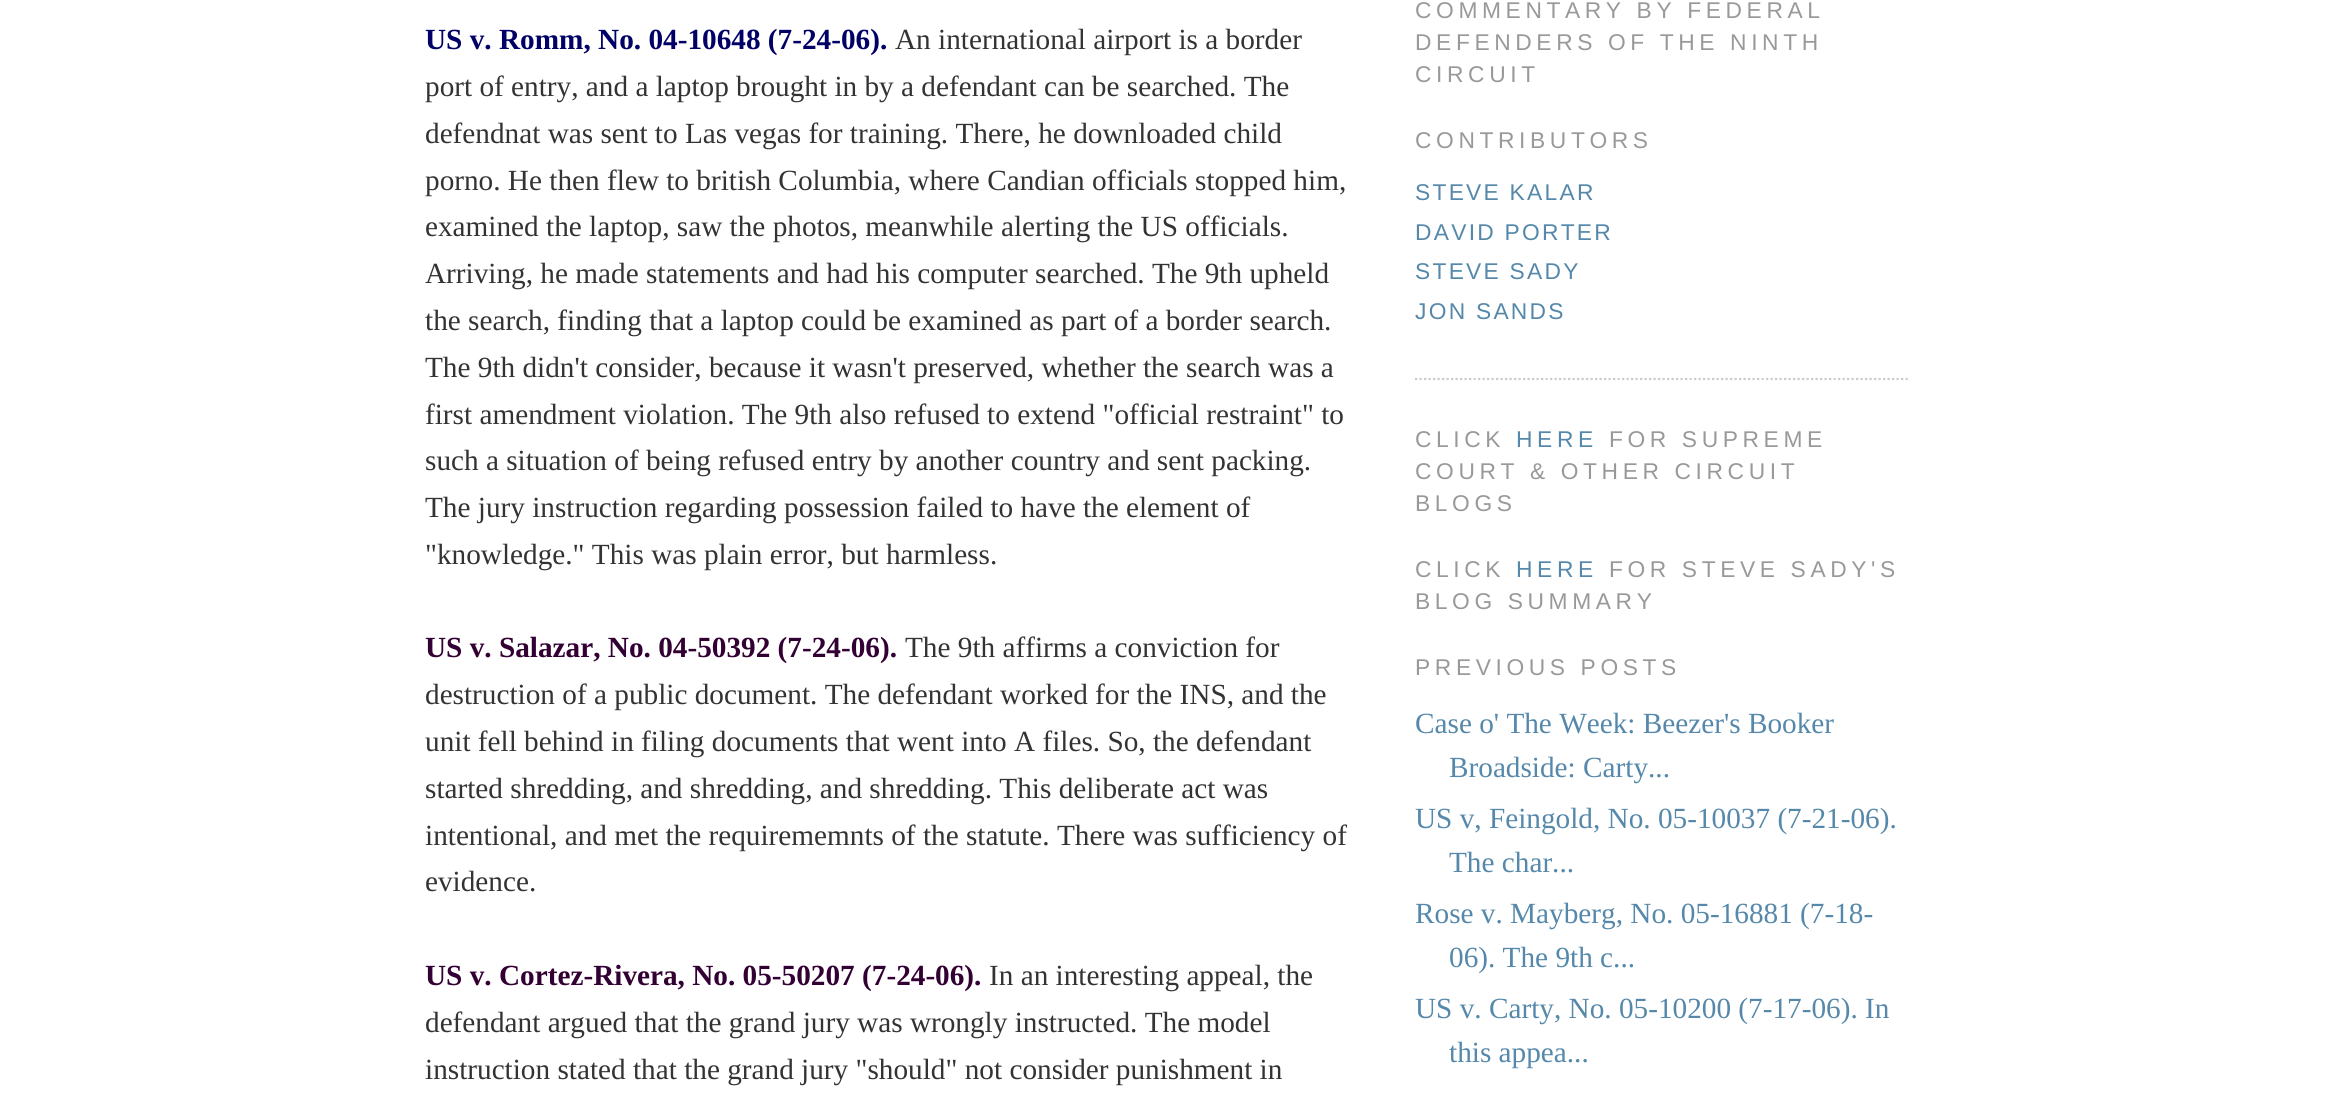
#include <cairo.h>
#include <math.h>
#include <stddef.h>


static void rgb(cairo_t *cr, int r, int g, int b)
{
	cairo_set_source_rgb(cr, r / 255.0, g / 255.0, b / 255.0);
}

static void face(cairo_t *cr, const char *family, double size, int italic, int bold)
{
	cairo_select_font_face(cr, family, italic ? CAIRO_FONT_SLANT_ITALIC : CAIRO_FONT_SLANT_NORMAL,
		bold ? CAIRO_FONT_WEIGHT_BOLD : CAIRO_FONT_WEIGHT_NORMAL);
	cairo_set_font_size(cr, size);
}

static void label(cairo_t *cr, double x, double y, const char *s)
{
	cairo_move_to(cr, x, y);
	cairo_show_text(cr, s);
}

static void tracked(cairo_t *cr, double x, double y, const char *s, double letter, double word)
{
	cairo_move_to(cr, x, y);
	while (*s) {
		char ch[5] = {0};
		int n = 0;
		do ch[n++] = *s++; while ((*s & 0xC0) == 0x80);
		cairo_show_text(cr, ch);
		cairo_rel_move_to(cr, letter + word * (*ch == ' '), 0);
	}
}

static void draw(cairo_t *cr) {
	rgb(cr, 255, 255, 255);
	cairo_paint(cr);
	face(cr, "Liberation Serif", 29.25, 0, 1);
	rgb(cr, 0, 0, 102);
	label(cr, 425, 49, "US v. Romm, No. 04-10648 (7-24-06).");
	face(cr, "Liberation Serif", 29.25, 0, 0);
	rgb(cr, 51, 51, 51);
	label(cr, 895, 49, "An international airport is a border");
	label(cr, 425, 96, "port of entry, and a laptop brought in by a defendant can be searched. The");
	label(cr, 425, 143, "defendnat was sent to Las vegas for training. There, he downloaded child");
	label(cr, 425, 190, "porno. He then flew to british Columbia, where Candian officials stopped him,");
	label(cr, 425, 236, "examined the laptop, saw the photos, meanwhile alerting the US officials.");
	label(cr, 425, 283, "Arriving, he made statements and had his computer searched. The 9th upheld");
	label(cr, 425, 330, "the search, finding that a laptop could be examined as part of a border search.");
	label(cr, 425, 377, "The 9th didn't consider, because it wasn't preserved, whether the search was a");
	label(cr, 425, 424, "first amendment violation. The 9th also refused to extend \"official restraint\" to");
	label(cr, 425, 470, "such a situation of being refused entry by another country and sent packing.");
	label(cr, 425, 517, "The jury instruction regarding possession failed to have the element of");
	label(cr, 425, 564, "\"knowledge.\" This was plain error, but harmless.");
	face(cr, "Liberation Serif", 29.25, 0, 1);
	rgb(cr, 51, 0, 51);
	label(cr, 425, 657, "US v. Salazar, No. 04-50392 (7-24-06).");
	face(cr, "Liberation Serif", 29.25, 0, 0);
	rgb(cr, 51, 51, 51);
	label(cr, 905, 657, "The 9th affirms a conviction for");
	label(cr, 425, 704, "destruction of a public document. The defendant worked for the INS, and the");
	label(cr, 425, 751, "unit fell behind in filing documents that went into A files. So, the defendant");
	label(cr, 425, 798, "started shredding, and shredding, and shredding. This deliberate act was");
	label(cr, 425, 845, "intentional, and met the requirememnts of the statute. There was sufficiency of");
	label(cr, 425, 891, "evidence.");
	face(cr, "Liberation Serif", 29.25, 0, 1);
	rgb(cr, 51, 0, 51);
	label(cr, 425, 985, "US v. Cortez-Rivera, No. 05-50207 (7-24-06).");
	face(cr, "Liberation Serif", 29.25, 0, 0);
	rgb(cr, 51, 51, 51);
	label(cr, 989, 985, "In an interesting appeal, the");
	label(cr, 425, 1032, "defendant argued that the grand jury was wrongly instructed. The model");
	label(cr, 425, 1079, "instruction stated that the grand jury \"should\" not consider punishment in");
	face(cr, "Liberation Sans", 22.8, 0, 0);
	rgb(cr, 153, 153, 153);
	tracked(cr, 1415, 18, "COMMENTARY BY FEDERAL", 4.6, 0);
	tracked(cr, 1415, 50, "DEFENDERS OF THE NINTH", 4.6, 0);
	tracked(cr, 1415, 82, "CIRCUIT", 4.6, 0);
	tracked(cr, 1415, 148, "CONTRIBUTORS", 4.6, 0);
	cairo_new_path(cr);
	cairo_move_to(cr, 1415, 379);
	cairo_line_to(cr, 1910, 379);
	rgb(cr, 204, 204, 204);
	cairo_set_line_width(cr, 2.2);
	cairo_set_dash(cr, (double[]){2.25, 2.25}, 2, 0);
	cairo_stroke(cr);
	rgb(cr, 85, 136, 170);
	tracked(cr, 1415, 200, "STEVE KALAR", 2.25, 0);
	tracked(cr, 1415, 240, "DAVID PORTER", 2.25, 0);
	tracked(cr, 1415, 279, "STEVE SADY", 2.25, 0);
	tracked(cr, 1415, 319, "JON SANDS", 2.25, 0);
	rgb(cr, 153, 153, 153);
	tracked(cr, 1415, 447, "CLICK", 4.6, 0);
	rgb(cr, 85, 136, 170);
	tracked(cr, 1516, 447, "HERE", 4.6, 0);
	rgb(cr, 153, 153, 153);
	tracked(cr, 1609, 447, "FOR SUPREME", 4.6, 0);
	tracked(cr, 1415, 479, "COURT & OTHER CIRCUIT", 4.6, 0);
	tracked(cr, 1415, 511, "BLOGS", 4.6, 0);
	tracked(cr, 1415, 577, "CLICK", 4.6, 0);
	rgb(cr, 85, 136, 170);
	tracked(cr, 1516, 577, "HERE", 4.6, 0);
	rgb(cr, 153, 153, 153);
	tracked(cr, 1609, 577, "FOR STEVE SADY'S", 4.6, 0);
	tracked(cr, 1415, 609, "BLOG SUMMARY", 4.6, 0);
	tracked(cr, 1415, 675, "PREVIOUS POSTS", 4.6, 0);
	face(cr, "Liberation Serif", 29.25, 0, 0);
	rgb(cr, 85, 136, 170);
	label(cr, 1415, 733, "Case o' The Week: Beezer's Booker");
	label(cr, 1449, 777, "Broadside: Carty...");
	label(cr, 1415, 828, "US v, Feingold, No. 05-10037 (7-21-06).");
	label(cr, 1449, 872, "The char...");
	label(cr, 1415, 923, "Rose v. Mayberg, No. 05-16881 (7-18-");
	label(cr, 1449, 967, "06). The 9th c...");
	label(cr, 1415, 1018, "US v. Carty, No. 05-10200 (7-17-06). In");
	label(cr, 1449, 1062, "this appea...");
}

int main(void) {
	cairo_surface_t *surface = cairo_image_surface_create(CAIRO_FORMAT_RGB24, 2334, 1096);
	cairo_t *cr = cairo_create(surface);
	cairo_font_options_t *options = cairo_font_options_create();
	cairo_font_options_set_hint_metrics(options, CAIRO_HINT_METRICS_OFF);
	cairo_font_options_set_hint_style(options, CAIRO_HINT_STYLE_NONE);
	cairo_set_font_options(cr, options);
	cairo_set_miter_limit(cr, 4);
	draw(cr);
	cairo_surface_write_to_png(surface, "render.png");
	cairo_font_options_destroy(options);
	cairo_destroy(cr);
	cairo_surface_destroy(surface);
	return 0;
}
